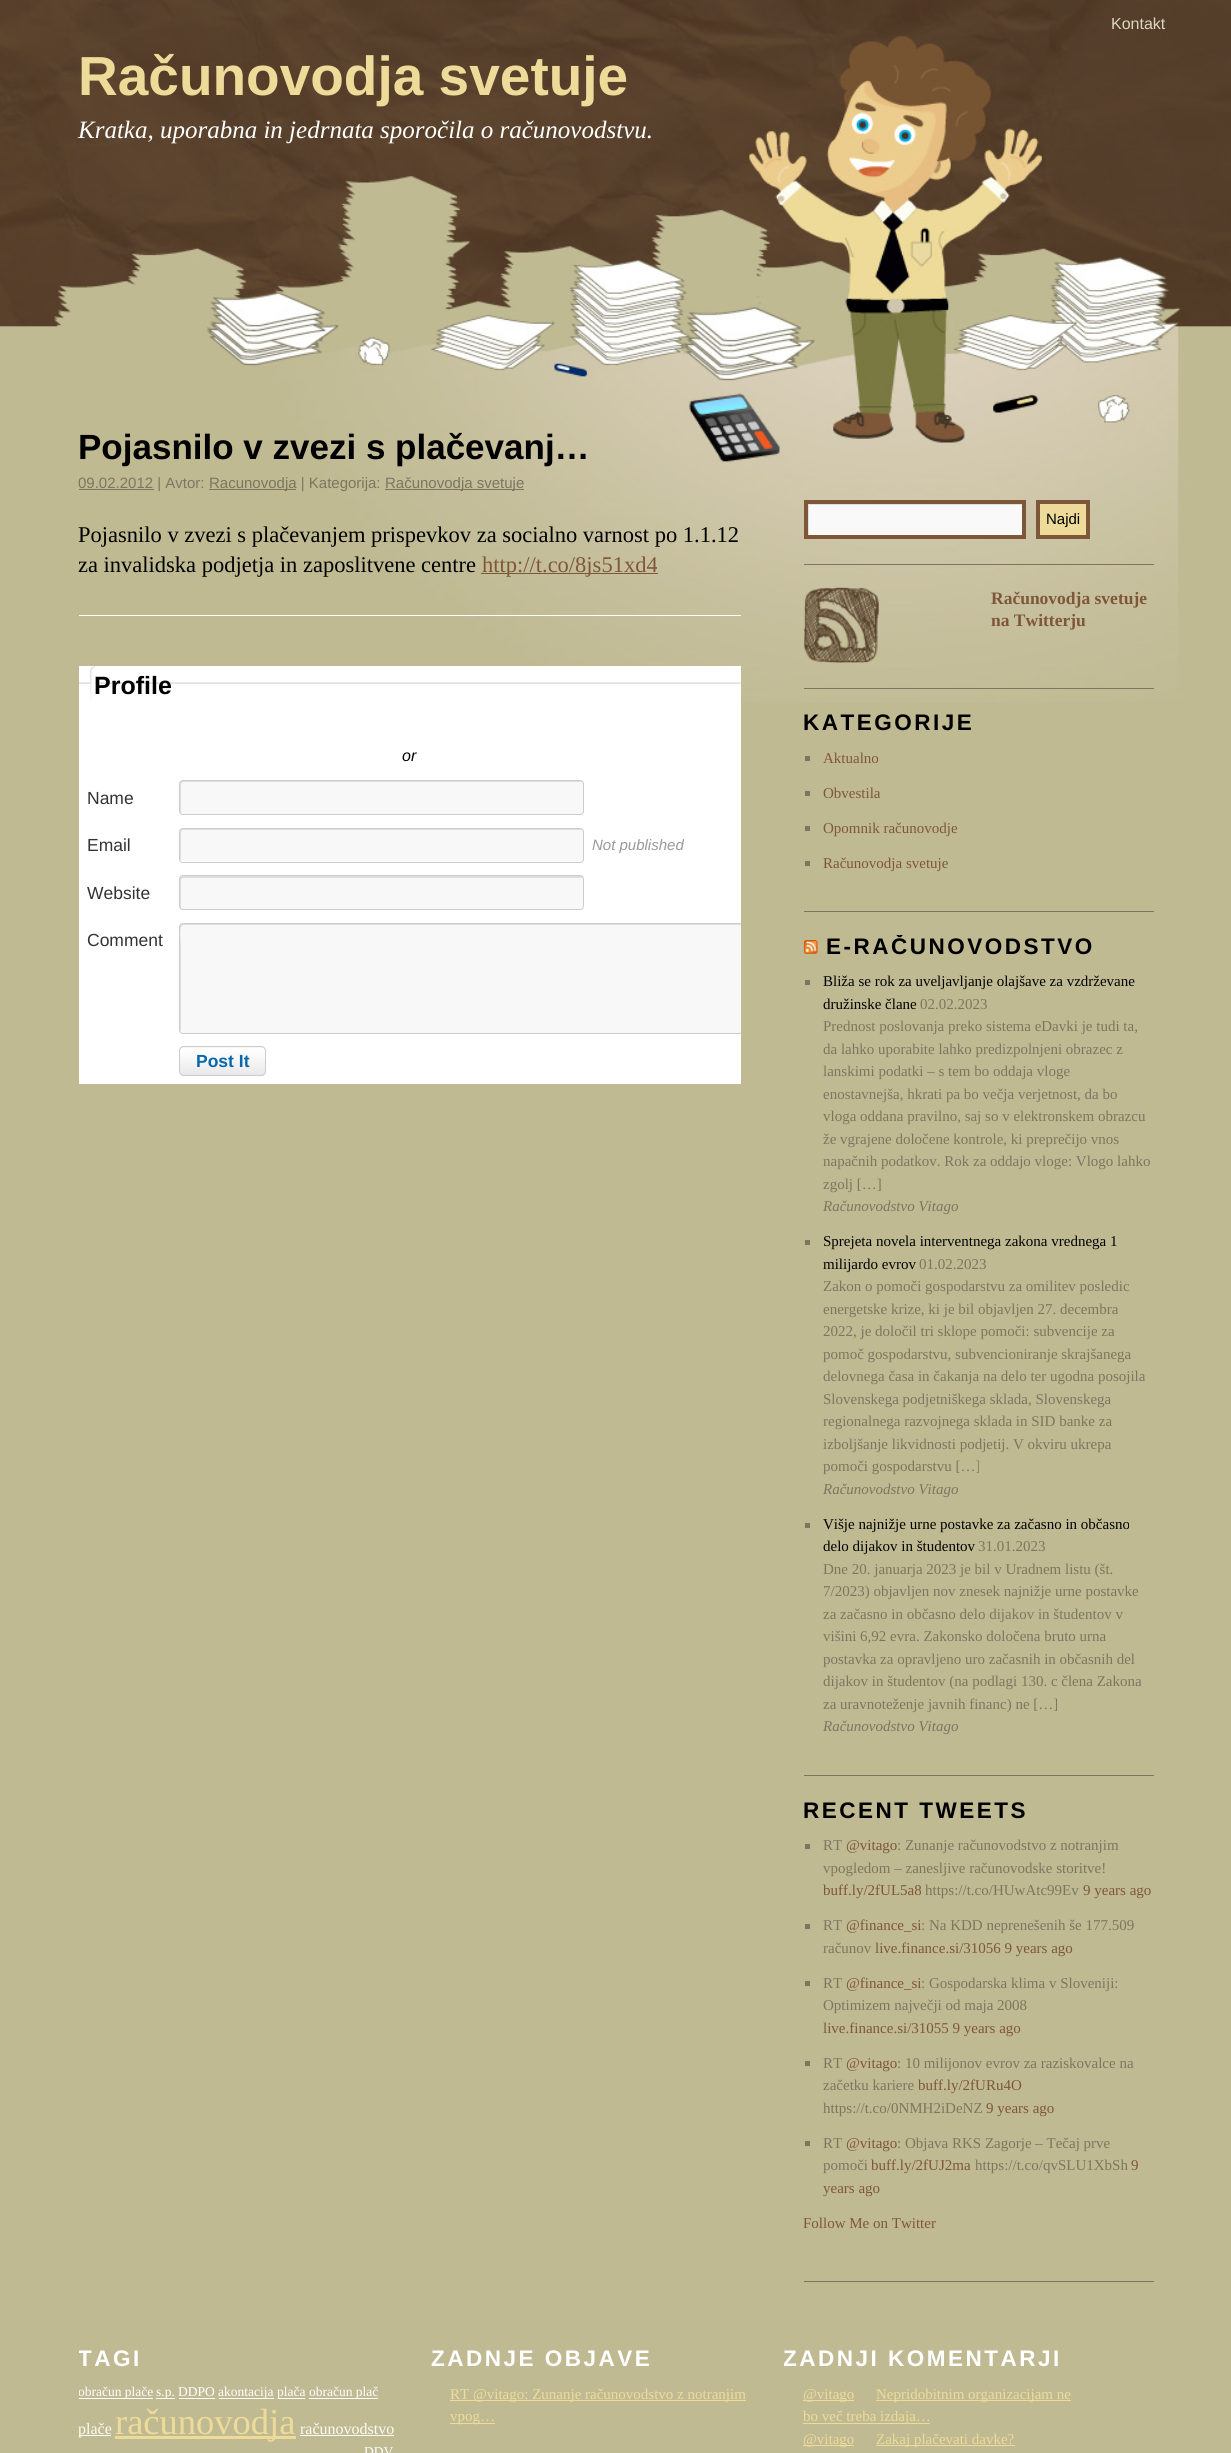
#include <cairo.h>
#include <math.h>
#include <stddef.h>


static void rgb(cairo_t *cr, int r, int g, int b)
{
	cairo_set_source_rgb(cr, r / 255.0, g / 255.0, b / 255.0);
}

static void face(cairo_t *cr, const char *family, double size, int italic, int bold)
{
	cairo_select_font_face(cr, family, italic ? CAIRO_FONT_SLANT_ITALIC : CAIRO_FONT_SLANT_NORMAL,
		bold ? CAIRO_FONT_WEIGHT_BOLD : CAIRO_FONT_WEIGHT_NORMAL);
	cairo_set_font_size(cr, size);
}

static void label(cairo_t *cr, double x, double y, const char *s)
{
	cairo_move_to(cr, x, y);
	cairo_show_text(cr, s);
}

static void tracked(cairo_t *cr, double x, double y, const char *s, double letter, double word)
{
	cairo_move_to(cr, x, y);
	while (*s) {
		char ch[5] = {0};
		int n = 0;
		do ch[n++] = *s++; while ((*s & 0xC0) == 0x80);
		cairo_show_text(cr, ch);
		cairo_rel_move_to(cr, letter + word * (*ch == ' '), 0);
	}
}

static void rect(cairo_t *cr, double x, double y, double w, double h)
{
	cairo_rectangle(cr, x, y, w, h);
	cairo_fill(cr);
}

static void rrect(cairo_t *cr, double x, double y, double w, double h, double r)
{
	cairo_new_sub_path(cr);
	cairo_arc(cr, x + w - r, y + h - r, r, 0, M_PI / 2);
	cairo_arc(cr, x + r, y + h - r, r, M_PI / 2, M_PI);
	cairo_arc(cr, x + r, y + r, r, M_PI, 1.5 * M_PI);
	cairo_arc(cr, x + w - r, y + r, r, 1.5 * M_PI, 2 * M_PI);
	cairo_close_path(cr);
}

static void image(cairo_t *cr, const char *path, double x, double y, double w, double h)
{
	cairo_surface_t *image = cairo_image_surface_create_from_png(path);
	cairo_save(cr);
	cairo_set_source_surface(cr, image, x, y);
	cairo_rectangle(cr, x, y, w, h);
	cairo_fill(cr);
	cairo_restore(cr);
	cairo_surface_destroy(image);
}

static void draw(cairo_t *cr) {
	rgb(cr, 192, 186, 147);
	cairo_paint(cr);
	image(cr, "image0.png", 0, 0, 1231, 702);
	face(cr, "Liberation Sans", 16, 0, 0);
	rgb(cr, 220, 216, 191);
	label(cr, 1111, 29, "Kontakt");
	face(cr, "Liberation Sans", 55, 0, 1);
	rgb(cr, 238, 219, 153);
	label(cr, 78, 95, "Računovodja svetuje");
	face(cr, "Liberation Serif", 25, 1, 0);
	rgb(cr, 255, 255, 255);
	label(cr, 78, 138, "Kratka, uporabna in jedrnata sporočila o računovodstvu.");
	rect(cr, 79, 615, 662, 1);
	face(cr, "Liberation Sans", 35, 0, 1);
	rgb(cr, 0, 0, 0);
	label(cr, 78, 459, "Pojasnilo v zvezi s plačevanj…");
	rgb(cr, 123, 119, 95);
	rect(cr, 79, 489, 75, 1);
	face(cr, "Liberation Sans", 15, 0, 0);
	label(cr, 78, 488, "09.02.2012 | Avtor:");
	rect(cr, 209, 489, 87, 1);
	label(cr, 209, 488, "Racunovodja | Kategorija:");
	rect(cr, 385, 489, 139, 1);
	label(cr, 385, 488, "Računovodja svetuje");
	face(cr, "Liberation Serif", 22.5, 0, 0);
	rgb(cr, 0, 0, 0);
	label(cr, 78, 542, "Pojasnilo v zvezi s plačevanjem prispevkov za socialno varnost po 1.1.12");
	label(cr, 78, 572, "za invalidska podjetja in zaposlitvene centre");
	rgb(cr, 126, 87, 56);
	rect(cr, 481, 573, 177, 1);
	label(cr, 482, 572, "http://t.co/8js51xd4");
	rgb(cr, 255, 255, 255);
	rect(cr, 79, 666, 662, 418);
	image(cr, "image1.png", 79, 666, 662, 35);
	face(cr, "Liberation Sans", 25, 0, 1);
	rgb(cr, 0, 0, 0);
	label(cr, 94, 694, "Profile");
	face(cr, "Liberation Sans", 16, 1, 0);
	label(cr, 402, 761, "or");
	face(cr, "Liberation Sans", 17.5, 0, 0);
	rgb(cr, 51, 51, 51);
	label(cr, 87, 804, "Name");
	rgb(cr, 248, 248, 248);
	rrect(cr, 180, 781, 403, 33, 2.5);
	cairo_fill(cr);
	rgb(cr, 223, 223, 223);
	cairo_new_path(cr);
	cairo_move_to(cr, 184, 782);
	cairo_line_to(cr, 581, 782);
	cairo_line_to(cr, 583, 783);
	cairo_curve_to(cr, 583, 782, 582, 781, 580, 781);
	cairo_line_to(cr, 182, 781);
	cairo_curve_to(cr, 181, 781, 180, 782, 180, 784);
	cairo_line_to(cr, 180, 812);
	cairo_curve_to(cr, 180, 812, 181, 813, 181, 814);
	cairo_line_to(cr, 181, 790);
	cairo_curve_to(cr, 181, 787, 180, 782, 184, 782);
	cairo_close_path(cr);
	cairo_fill(cr);
	rrect(cr, 179.5, 780.5, 404, 34, 3.5);
	rgb(cr, 204, 204, 204);
	cairo_set_line_width(cr, 1);
	cairo_stroke(cr);
	rgb(cr, 51, 51, 51);
	label(cr, 87, 851, "Email");
	rgb(cr, 248, 248, 248);
	rrect(cr, 180, 829, 403, 32, 2.5);
	cairo_fill(cr);
	rgb(cr, 223, 223, 223);
	cairo_new_path(cr);
	cairo_move_to(cr, 184, 830);
	cairo_line_to(cr, 583, 830);
	cairo_curve_to(cr, 582, 830, 581, 829, 580, 829);
	cairo_line_to(cr, 182, 829);
	cairo_line_to(cr, 180, 831);
	cairo_line_to(cr, 180, 859);
	cairo_line_to(cr, 181, 861);
	cairo_line_to(cr, 181, 837);
	cairo_curve_to(cr, 181, 834, 180, 830, 184, 830);
	cairo_close_path(cr);
	cairo_fill(cr);
	rrect(cr, 179.5, 828.5, 404, 34, 3.5);
	rgb(cr, 204, 204, 204);
	cairo_stroke(cr);
	face(cr, "Liberation Sans", 15, 1, 0);
	rgb(cr, 153, 153, 153);
	label(cr, 592, 850, "Not published");
	face(cr, "Liberation Sans", 17.5, 0, 0);
	rgb(cr, 51, 51, 51);
	label(cr, 87, 899, "Website");
	rgb(cr, 248, 248, 248);
	rrect(cr, 180, 876, 403, 33, 2.5);
	cairo_fill(cr);
	rgb(cr, 223, 223, 223);
	cairo_new_path(cr);
	cairo_move_to(cr, 184, 878);
	cairo_line_to(cr, 581, 878);
	cairo_line_to(cr, 583, 878);
	cairo_line_to(cr, 582, 876);
	cairo_line_to(cr, 580, 876);
	cairo_line_to(cr, 182, 876);
	cairo_line_to(cr, 181, 877);
	cairo_line_to(cr, 180, 878);
	cairo_line_to(cr, 180, 907);
	cairo_line_to(cr, 181, 909);
	cairo_line_to(cr, 181, 885);
	cairo_curve_to(cr, 181, 882, 180, 878, 184, 878);
	cairo_close_path(cr);
	cairo_fill(cr);
	rrect(cr, 179.5, 875.5, 404, 34, 3.5);
	rgb(cr, 204, 204, 204);
	cairo_stroke(cr);
	rgb(cr, 51, 51, 51);
	label(cr, 87, 946, "Comment");
	rgb(cr, 248, 248, 248);
	rrect(cr, 180, 924, 561, 109, 2.5);
	cairo_fill(cr);
	rgb(cr, 223, 223, 223);
	cairo_new_path(cr);
	cairo_move_to(cr, 184, 925);
	cairo_line_to(cr, 741, 925);
	cairo_curve_to(cr, 740, 924, 739, 924, 738, 924);
	cairo_line_to(cr, 182, 924);
	cairo_curve_to(cr, 181, 924, 180, 925, 180, 926);
	cairo_line_to(cr, 180, 1030);
	cairo_curve_to(cr, 180, 1031, 181, 1032, 181, 1033);
	cairo_line_to(cr, 181, 945);
	cairo_curve_to(cr, 181, 939, 178, 925, 184, 925);
	cairo_close_path(cr);
	cairo_fill(cr);
	cairo_save(cr);
	cairo_rectangle(cr, 79, 923, 662, 111);
	cairo_clip(cr);
	rrect(cr, 179.5, 923.5, 563, 110, 3.5);
	rgb(cr, 204, 204, 204);
	cairo_stroke(cr);
	cairo_restore(cr);
	rgb(cr, 233, 233, 233);
	rrect(cr, 179, 1046, 87, 30, 5);
	cairo_fill(cr);
	image(cr, "image2.png", 180, 1047, 86, 29);
	rrect(cr, 179.5, 1046.5, 86, 29, 4.5);
	rgb(cr, 204, 204, 204);
	cairo_stroke(cr);
	face(cr, "Liberation Sans", 17.5, 0, 1);
	rgb(cr, 8, 103, 171);
	label(cr, 196, 1067, "Post It");
	rgb(cr, 123, 119, 95);
	rect(cr, 804, 564, 350, 1);
	rgb(cr, 249, 249, 249);
	rect(cr, 809, 505, 213, 30);
	cairo_save(cr);
	cairo_rectangle(cr, 808, 504, 215, 31);
	cairo_clip(cr);
	rgb(cr, 224, 224, 224);
	cairo_set_fill_rule(cr, CAIRO_FILL_RULE_EVEN_ODD);
	cairo_new_path(cr);
	cairo_move_to(cr, 684, 380);
	cairo_line_to(cr, 1146, 380);
	cairo_line_to(cr, 1146, 659);
	cairo_line_to(cr, 684, 659);
	cairo_close_path(cr);
	cairo_move_to(cr, 809, 505);
	cairo_line_to(cr, 1024, 505);
	cairo_line_to(cr, 1024, 536);
	cairo_line_to(cr, 809, 536);
	cairo_close_path(cr);
	cairo_fill(cr);
	cairo_restore(cr);
	cairo_rectangle(cr, 806, 502, 218, 35);
	rgb(cr, 126, 87, 56);
	cairo_set_line_width(cr, 4);
	cairo_stroke(cr);
	rgb(cr, 238, 219, 153);
	cairo_rectangle(cr, 1038, 502, 50, 35);
	cairo_fill_preserve(cr);
	rgb(cr, 126, 87, 56);
	cairo_stroke(cr);
	face(cr, "Liberation Sans", 15, 0, 0);
	rgb(cr, 0, 0, 0);
	label(cr, 1046, 524, "Najdi");
	rgb(cr, 123, 119, 95);
	rect(cr, 804, 688, 350, 1);
	image(cr, "image3.png", 803, 587, 76, 76);
	face(cr, "Liberation Serif", 17.5, 0, 1);
	rgb(cr, 126, 87, 56);
	label(cr, 991, 604, "Računovodja svetuje");
	label(cr, 991, 626, "na Twitterju");
	rgb(cr, 123, 119, 95);
	rect(cr, 804, 911, 350, 1);
	face(cr, "Liberation Sans", 22.5, 0, 1);
	rgb(cr, 0, 0, 0);
	tracked(cr, 803, 730, "KATEGORIJE", 2.5, 0);
	rgb(cr, 123, 119, 95);
	rect(cr, 805, 756, 5, 5);
	face(cr, "Liberation Serif", 15, 0, 0);
	rgb(cr, 126, 87, 56);
	label(cr, 823, 763, "Aktualno");
	rgb(cr, 123, 119, 95);
	rect(cr, 805, 791, 5, 5);
	rgb(cr, 126, 87, 56);
	label(cr, 823, 798, "Obvestila");
	rgb(cr, 123, 119, 95);
	rect(cr, 805, 826, 5, 5);
	rgb(cr, 126, 87, 56);
	label(cr, 823, 833, "Opomnik računovodje");
	rgb(cr, 123, 119, 95);
	rect(cr, 805, 861, 5, 5);
	rgb(cr, 126, 87, 56);
	label(cr, 823, 868, "Računovodja svetuje");
	rgb(cr, 123, 119, 95);
	rect(cr, 804, 1775, 350, 1);
	image(cr, "image4.png", 803, 940, 15, 14);
	cairo_save(cr);
	cairo_rectangle(cr, 804, 935, 350, 840);
	cairo_clip(cr);
	face(cr, "Liberation Sans", 22.5, 0, 1);
	rgb(cr, 0, 0, 0);
	tracked(cr, 826, 954, "E-RAČUNOVODSTVO", 2.5, 0);
	cairo_restore(cr);
	rect(cr, 805, 980, 5, 5);
	rgb(cr, 0, 0, 0);
	label(cr, 823, 986, "Bliža se rok za uveljavljanje olajšave za vzdrževane");
	label(cr, 823, 1009, "družinske člane");
	rgb(cr, 123, 119, 95);
	label(cr, 920, 1009, "02.02.2023");
	label(cr, 823, 1031, "Prednost poslovanja preko sistema eDavki je tudi ta,");
	label(cr, 823, 1054, "da lahko uporabite lahko predizpolnjeni obrazec z");
	label(cr, 823, 1076, "lanskimi podatki – s tem bo oddaja vloge");
	label(cr, 823, 1099, "enostavnejša, hkrati pa bo večja verjetnost, da bo");
	label(cr, 823, 1121, "vloga oddana pravilno, saj so v elektronskem obrazcu");
	label(cr, 823, 1144, "že vgrajene določene kontrole, ki preprečijo vnos");
	label(cr, 823, 1166, "napačnih podatkov. Rok za oddajo vloge: Vlogo lahko");
	label(cr, 823, 1189, "zgolj […]");
	face(cr, "Liberation Serif", 15, 1, 0);
	label(cr, 823, 1211, "Računovodstvo Vitago");
	rect(cr, 805, 1240, 5, 5);
	face(cr, "Liberation Serif", 15, 0, 0);
	rgb(cr, 0, 0, 0);
	label(cr, 823, 1246, "Sprejeta novela interventnega zakona vrednega 1");
	label(cr, 823, 1269, "milijardo evrov");
	rgb(cr, 123, 119, 95);
	label(cr, 919, 1269, "01.02.2023");
	label(cr, 823, 1291, "Zakon o pomoči gospodarstvu za omilitev posledic");
	label(cr, 823, 1314, "energetske krize, ki je bil objavljen 27. decembra");
	label(cr, 823, 1336, "2022, je določil tri sklope pomoči: subvencije za");
	label(cr, 823, 1359, "pomoč gospodarstvu, subvencioniranje skrajšanega");
	label(cr, 823, 1381, "delovnega časa in čakanja na delo ter ugodna posojila");
	label(cr, 823, 1404, "Slovenskega podjetniškega sklada, Slovenskega");
	label(cr, 823, 1426, "regionalnega razvojnega sklada in SID banke za");
	label(cr, 823, 1449, "izboljšanje likvidnosti podjetij. V okviru ukrepa");
	label(cr, 823, 1471, "pomoči gospodarstvu […]");
	face(cr, "Liberation Serif", 15, 1, 0);
	label(cr, 823, 1494, "Računovodstvo Vitago");
	rect(cr, 805, 1523, 5, 5);
	face(cr, "Liberation Serif", 15, 0, 0);
	rgb(cr, 0, 0, 0);
	label(cr, 823, 1529, "Višje najnižje urne postavke za začasno in občasno");
	label(cr, 823, 1551, "delo dijakov in študentov");
	rgb(cr, 123, 119, 95);
	label(cr, 978, 1551, "31.01.2023");
	label(cr, 823, 1574, "Dne 20. januarja 2023 je bil v Uradnem listu (št.");
	label(cr, 823, 1596, "7/2023) objavljen nov znesek najnižje urne postavke");
	label(cr, 823, 1619, "za začasno in občasno delo dijakov in študentov v");
	label(cr, 823, 1641, "višini 6,92 evra. Zakonsko določena bruto urna");
	label(cr, 823, 1664, "postavka za opravljeno uro začasnih in občasnih del");
	label(cr, 823, 1686, "dijakov in študentov (na podlagi 130. c člena Zakona");
	label(cr, 823, 1709, "za uravnoteženje javnih financ) ne […]");
	face(cr, "Liberation Serif", 15, 1, 0);
	label(cr, 823, 1731, "Računovodstvo Vitago");
	rect(cr, 804, 2281, 350, 1);
	face(cr, "Liberation Sans", 22.5, 0, 1);
	rgb(cr, 0, 0, 0);
	tracked(cr, 803, 1818, "RECENT TWEETS", 2.5, 0);
	rgb(cr, 123, 119, 95);
	rect(cr, 805, 1844, 5, 5);
	face(cr, "Liberation Serif", 15, 0, 0);
	label(cr, 823, 1850, "RT");
	rgb(cr, 126, 87, 56);
	label(cr, 846, 1850, "@vitago");
	rgb(cr, 123, 119, 95);
	label(cr, 897, 1850, ": Zunanje računovodstvo z notranjim");
	label(cr, 823, 1873, "vpogledom – zanesljive računovodske storitve!");
	rgb(cr, 126, 87, 56);
	label(cr, 823, 1895, "buff.ly/2fUL5a8");
	rgb(cr, 123, 119, 95);
	label(cr, 925, 1895, "https://t.co/HUwAtc99Ev");
	rgb(cr, 126, 87, 56);
	label(cr, 1083, 1895, "9 years ago");
	rgb(cr, 123, 119, 95);
	rect(cr, 805, 1924, 5, 5);
	label(cr, 823, 1930, "RT");
	rgb(cr, 126, 87, 56);
	label(cr, 846, 1930, "@finance_si");
	rgb(cr, 123, 119, 95);
	label(cr, 921, 1930, ": Na KDD neprenešenih še 177.509");
	label(cr, 823, 1953, "računov");
	rgb(cr, 126, 87, 56);
	label(cr, 875, 1953, "live.finance.si/31056 9 years ago");
	rgb(cr, 123, 119, 95);
	rect(cr, 805, 1981, 5, 5);
	label(cr, 823, 1988, "RT");
	rgb(cr, 126, 87, 56);
	label(cr, 846, 1988, "@finance_si");
	rgb(cr, 123, 119, 95);
	label(cr, 921, 1988, ": Gospodarska klima v Sloveniji:");
	label(cr, 823, 2010, "Optimizem največji od maja 2008");
	rgb(cr, 126, 87, 56);
	label(cr, 823, 2033, "live.finance.si/31055 9 years ago");
	rgb(cr, 123, 119, 95);
	rect(cr, 805, 2061, 5, 5);
	label(cr, 823, 2068, "RT");
	rgb(cr, 126, 87, 56);
	label(cr, 846, 2068, "@vitago");
	rgb(cr, 123, 119, 95);
	label(cr, 897, 2068, ": 10 milijonov evrov za raziskovalce na");
	label(cr, 823, 2090, "začetku kariere");
	rgb(cr, 126, 87, 56);
	label(cr, 918, 2090, "buff.ly/2fURu4O");
	rgb(cr, 123, 119, 95);
	label(cr, 823, 2113, "https://t.co/0NMH2iDeNZ");
	rgb(cr, 126, 87, 56);
	label(cr, 986, 2113, "9 years ago");
	rgb(cr, 123, 119, 95);
	rect(cr, 805, 2141, 5, 5);
	label(cr, 823, 2148, "RT");
	rgb(cr, 126, 87, 56);
	label(cr, 846, 2148, "@vitago");
	rgb(cr, 123, 119, 95);
	label(cr, 897, 2148, ": Objava RKS Zagorje – Tečaj prve");
	label(cr, 823, 2170, "pomoči");
	rgb(cr, 126, 87, 56);
	label(cr, 871, 2170, "buff.ly/2fUJ2ma");
	rgb(cr, 123, 119, 95);
	label(cr, 975, 2170, "https://t.co/qvSLU1XbSh");
	rgb(cr, 126, 87, 56);
	label(cr, 1131, 2170, "9");
	label(cr, 823, 2193, "years ago");
	label(cr, 803, 2228, "Follow Me on Twitter");
	cairo_save(cr);
	cairo_rectangle(cr, 79, 2348, 327, 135);
	cairo_clip(cr);
	face(cr, "Liberation Sans", 22.5, 0, 1);
	rgb(cr, 255, 255, 255);
	tracked(cr, 78, 2366, "TAGI", 2.5, 0);
	cairo_restore(cr);
	rgb(cr, 255, 255, 255);
	rect(cr, 79, 2398, 74, 1);
	cairo_save(cr);
	cairo_rectangle(cr, 79, 2348, 327, 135);
	cairo_clip(cr);
	face(cr, "Liberation Serif", 13.5, 0, 0);
	label(cr, 78, 2396, "obračun plače");
	cairo_restore(cr);
	rect(cr, 156, 2398, 19, 1);
	face(cr, "Liberation Serif", 13.5, 0, 0);
	label(cr, 156, 2396, "s.p.");
	label(cr, 178, 2396, "DDPO");
	rect(cr, 179, 2398, 36, 1);
	rect(cr, 219, 2398, 55, 1);
	label(cr, 218, 2396, "akontacija");
	rect(cr, 278, 2398, 27, 1);
	label(cr, 277, 2396, "plača");
	rect(cr, 309, 2398, 69, 1);
	label(cr, 309, 2396, "obračun plač");
	rgb(cr, 253, 251, 243);
	rect(cr, 79, 2435, 32, 1);
	face(cr, "Liberation Serif", 16, 0, 0);
	label(cr, 78, 2434, "plače");
	rgb(cr, 238, 219, 153);
	rect(cr, 115, 2436, 181, 3);
	face(cr, "Liberation Serif", 36.5, 0, 0);
	label(cr, 115, 2434, "računovodja");
	face(cr, "Liberation Serif", 16, 0, 0);
	rgb(cr, 253, 251, 243);
	label(cr, 300, 2434, "računovodstvo");
	rect(cr, 300, 2435, 94, 1);
	face(cr, "Liberation Serif", 13.5, 0, 0);
	rgb(cr, 255, 255, 255);
	label(cr, 364, 2456, "DDV");
	face(cr, "Liberation Sans", 22.5, 0, 1);
	tracked(cr, 431, 2366, "ZADNJE OBJAVE", 2.5, 0);
	rgb(cr, 238, 219, 153);
	rect(cr, 450, 2400, 296, 1);
	face(cr, "Liberation Serif", 15, 0, 0);
	label(cr, 450, 2399, "RT @vitago: Zunanje računovodstvo z notranjim");
	rect(cr, 450, 2423, 45, 1);
	label(cr, 450, 2421, "vpog…");
	cairo_save(cr);
	cairo_rectangle(cr, 784, 2348, 294, 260);
	cairo_clip(cr);
	face(cr, "Liberation Sans", 22.5, 0, 1);
	rgb(cr, 255, 255, 255);
	tracked(cr, 783, 2366, "ZADNJI KOMENTARJI", 2.5, 0);
	cairo_restore(cr);
	rect(cr, 803, 2400, 51, 1);
	label(cr, 803, 2399, "@vitago");
	rect(cr, 876, 2400, 195, 1);
	label(cr, 876, 2399, "Nepridobitnim organizacijam ne");
	rect(cr, 803, 2423, 127, 1);
	label(cr, 803, 2421, "bo več treba izdaja…");
	rect(cr, 803, 2445, 51, 1);
	label(cr, 803, 2444, "@vitago");
	rect(cr, 876, 2445, 139, 1);
	label(cr, 876, 2444, "Zakaj plačevati davke?");
}

int main(void) {
	cairo_surface_t *surface = cairo_image_surface_create(CAIRO_FORMAT_RGB24, 1231, 2453);
	cairo_t *cr = cairo_create(surface);
	cairo_font_options_t *options = cairo_font_options_create();
	cairo_font_options_set_hint_metrics(options, CAIRO_HINT_METRICS_OFF);
	cairo_font_options_set_hint_style(options, CAIRO_HINT_STYLE_NONE);
	cairo_set_font_options(cr, options);
	cairo_set_miter_limit(cr, 4);
	draw(cr);
	cairo_surface_write_to_png(surface, "render.png");
	cairo_font_options_destroy(options);
	cairo_destroy(cr);
	cairo_surface_destroy(surface);
	return 0;
}
